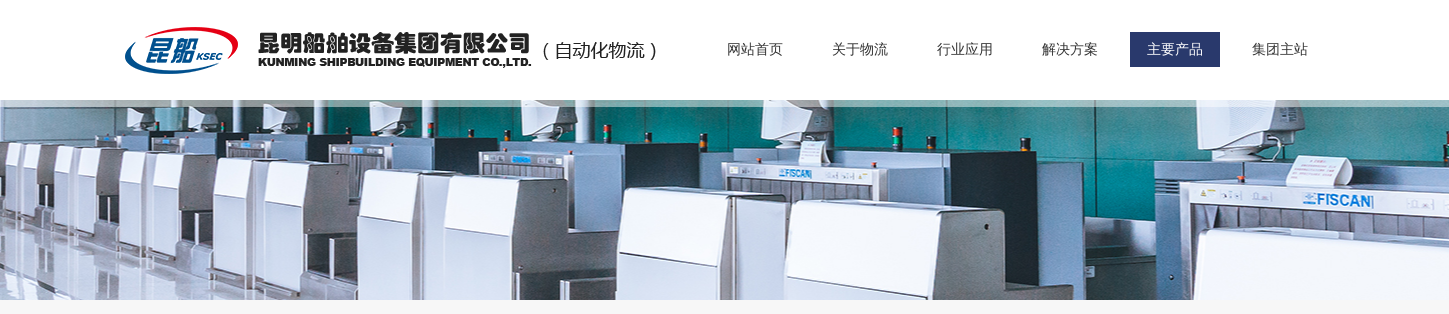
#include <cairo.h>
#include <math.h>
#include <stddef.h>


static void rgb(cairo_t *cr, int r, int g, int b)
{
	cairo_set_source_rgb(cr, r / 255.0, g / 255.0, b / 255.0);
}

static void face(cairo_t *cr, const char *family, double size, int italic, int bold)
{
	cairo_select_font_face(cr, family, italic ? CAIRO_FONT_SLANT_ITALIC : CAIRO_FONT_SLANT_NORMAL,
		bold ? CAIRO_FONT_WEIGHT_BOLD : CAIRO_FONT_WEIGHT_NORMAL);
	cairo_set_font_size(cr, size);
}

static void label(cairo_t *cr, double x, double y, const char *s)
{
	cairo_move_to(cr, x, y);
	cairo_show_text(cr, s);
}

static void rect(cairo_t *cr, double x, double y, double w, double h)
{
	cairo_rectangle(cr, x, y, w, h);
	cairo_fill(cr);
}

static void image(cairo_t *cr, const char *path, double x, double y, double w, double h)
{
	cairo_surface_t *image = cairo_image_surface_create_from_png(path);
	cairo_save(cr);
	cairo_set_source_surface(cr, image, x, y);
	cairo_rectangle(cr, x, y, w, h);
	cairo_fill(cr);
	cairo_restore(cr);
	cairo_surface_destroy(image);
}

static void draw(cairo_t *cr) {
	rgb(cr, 247, 247, 247);
	cairo_paint(cr);
	rgb(cr, 255, 255, 255);
	rect(cr, 0, 0, 1449, 100);
	image(cr, "image0.png", 125, 27, 531, 47);
	face(cr, "WenQuanYi Zen Hei Medium", 14, 0, 0);
	rgb(cr, 51, 51, 51);
	label(cr, 727, 54, "网站首页");
	label(cr, 832, 54, "关于物流");
	label(cr, 937, 54, "行业应用");
	label(cr, 1042, 54, "解决方案");
	rgb(cr, 41, 57, 108);
	rect(cr, 1130, 32, 90, 35);
	rgb(cr, 255, 255, 255);
	label(cr, 1147, 54, "主要产品");
	rgb(cr, 51, 51, 51);
	label(cr, 1252, 54, "集团主站");
	image(cr, "image1.png", 0, 100, 1449, 200);
}

int main(void) {
	cairo_surface_t *surface = cairo_image_surface_create(CAIRO_FORMAT_RGB24, 1449, 314);
	cairo_t *cr = cairo_create(surface);
	cairo_font_options_t *options = cairo_font_options_create();
	cairo_font_options_set_hint_metrics(options, CAIRO_HINT_METRICS_OFF);
	cairo_font_options_set_hint_style(options, CAIRO_HINT_STYLE_NONE);
	cairo_set_font_options(cr, options);
	cairo_set_miter_limit(cr, 4);
	draw(cr);
	cairo_surface_write_to_png(surface, "render.png");
	cairo_font_options_destroy(options);
	cairo_destroy(cr);
	cairo_surface_destroy(surface);
	return 0;
}
